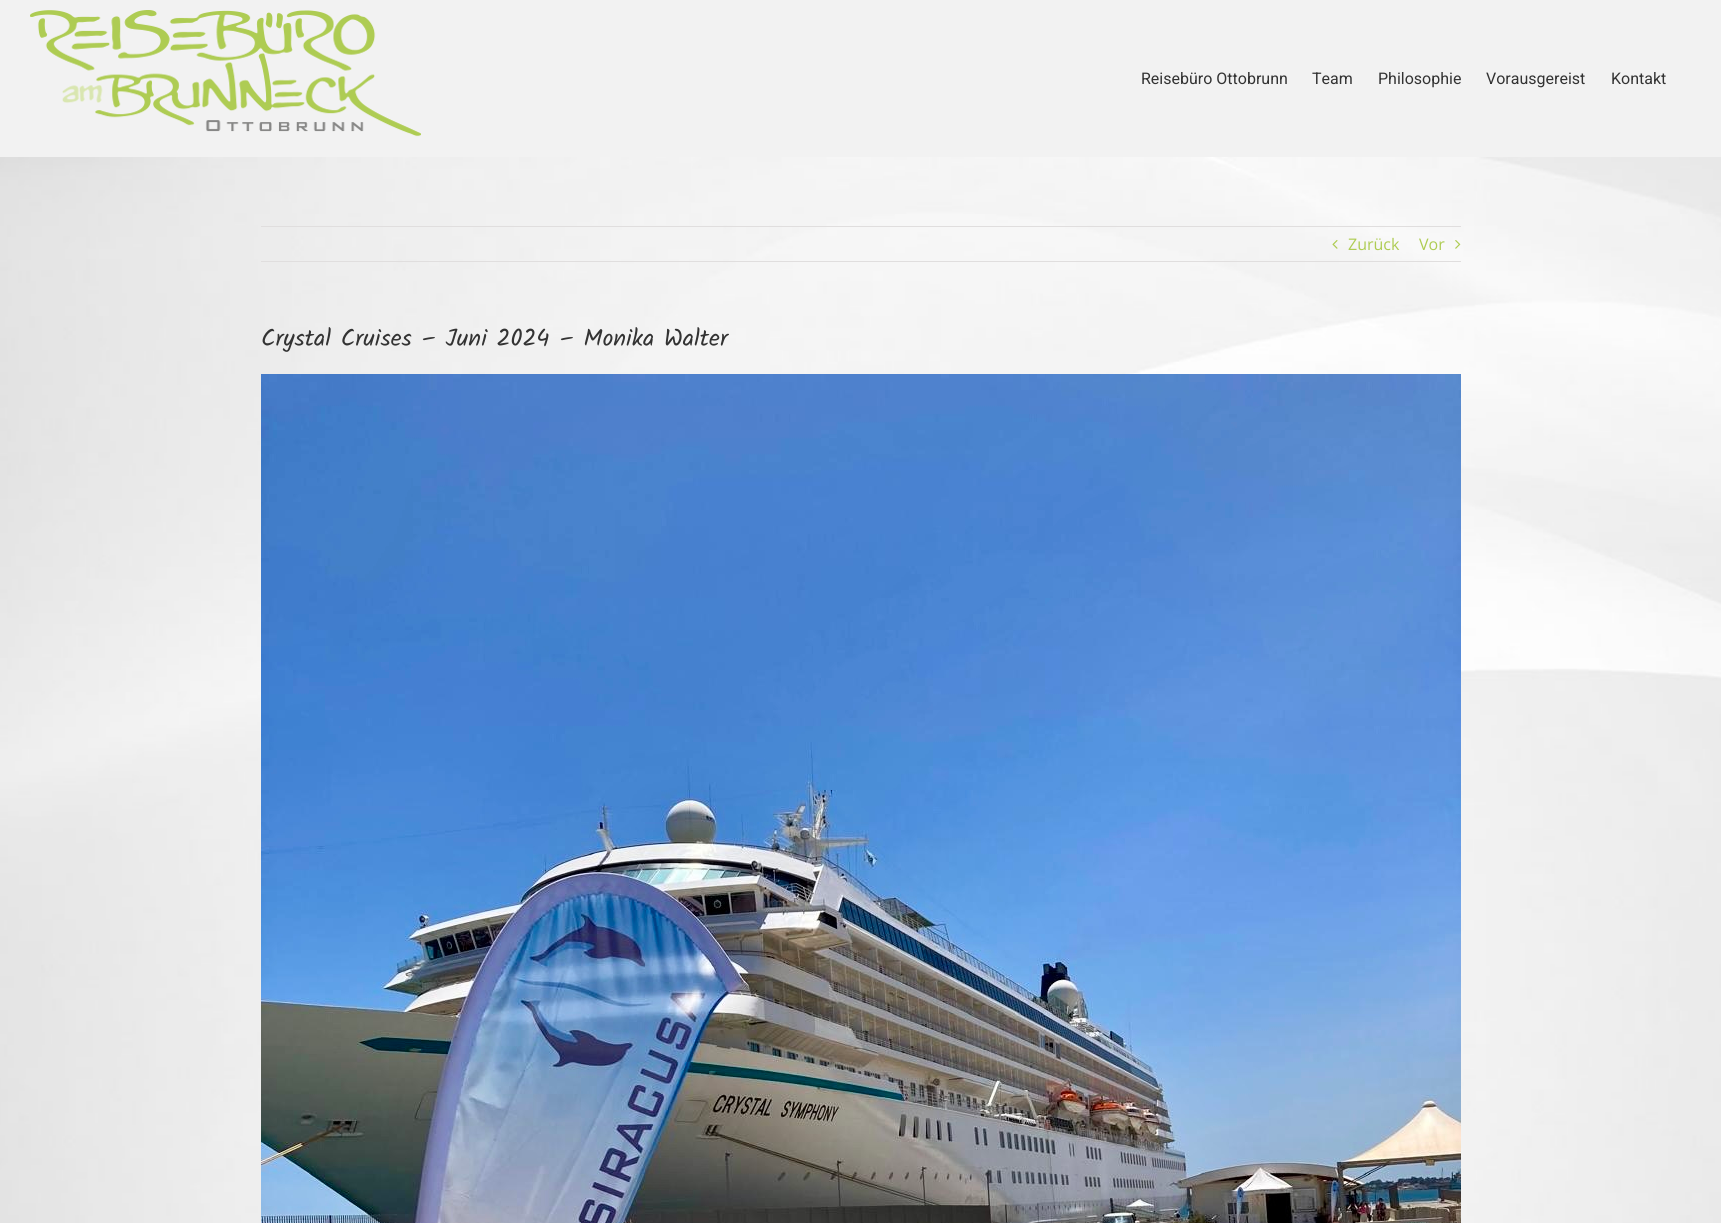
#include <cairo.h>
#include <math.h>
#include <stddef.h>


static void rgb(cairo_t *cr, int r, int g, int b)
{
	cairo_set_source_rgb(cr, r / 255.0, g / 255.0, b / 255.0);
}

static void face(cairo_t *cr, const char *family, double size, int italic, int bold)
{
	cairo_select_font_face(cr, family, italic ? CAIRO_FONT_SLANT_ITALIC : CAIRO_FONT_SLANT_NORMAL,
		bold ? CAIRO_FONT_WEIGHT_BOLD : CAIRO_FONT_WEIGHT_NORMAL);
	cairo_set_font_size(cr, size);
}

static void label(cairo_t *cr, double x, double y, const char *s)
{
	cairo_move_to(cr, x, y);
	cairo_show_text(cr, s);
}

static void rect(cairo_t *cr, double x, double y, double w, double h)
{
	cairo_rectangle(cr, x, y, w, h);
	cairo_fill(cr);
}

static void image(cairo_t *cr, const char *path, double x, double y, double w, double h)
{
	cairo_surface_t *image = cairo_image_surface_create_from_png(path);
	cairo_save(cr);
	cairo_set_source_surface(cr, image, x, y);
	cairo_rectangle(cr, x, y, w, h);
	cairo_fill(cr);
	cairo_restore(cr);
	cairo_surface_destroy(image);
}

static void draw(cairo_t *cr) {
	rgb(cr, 242, 242, 242);
	cairo_paint(cr);
	image(cr, "image0.png", 30, 10, 391, 127);
	face(cr, "Roboto", 16, 0, 0);
	rgb(cr, 51, 51, 51);
	label(cr, 1141, 84, "Reisebüro Ottobrunn");
	label(cr, 1312, 84, "Team");
	label(cr, 1378, 84, "Philosophie");
	label(cr, 1486, 84, "Vorausgereist");
	label(cr, 1611, 84, "Kontakt");
	image(cr, "image1.png", 0, 157, 1721, 1066);
	rgb(cr, 224, 222, 222);
	rect(cr, 261, 226, 1200, 1);
	rect(cr, 261, 261, 1200, 1);
	image(cr, "image2.png", 1332, 240, 6, 9);
	face(cr, "Open Sans", 16, 0, 0);
	rgb(cr, 174, 204, 83);
	label(cr, 1348, 250, "Zurück");
	label(cr, 1419, 250, "Vor");
	image(cr, "image3.png", 1455, 240, 6, 9);
	face(cr, "Kalam", 24, 0, 0);
	rgb(cr, 51, 51, 51);
	label(cr, 261, 346, "Crystal Cruises – Juni 2024 – Monika Walter");
	image(cr, "image4.png", 261, 374, 1200, 849);
}

int main(void) {
	cairo_surface_t *surface = cairo_image_surface_create(CAIRO_FORMAT_RGB24, 1721, 1223);
	cairo_t *cr = cairo_create(surface);
	cairo_font_options_t *options = cairo_font_options_create();
	cairo_font_options_set_hint_metrics(options, CAIRO_HINT_METRICS_OFF);
	cairo_font_options_set_hint_style(options, CAIRO_HINT_STYLE_NONE);
	cairo_set_font_options(cr, options);
	cairo_set_miter_limit(cr, 4);
	draw(cr);
	cairo_surface_write_to_png(surface, "render.png");
	cairo_font_options_destroy(options);
	cairo_destroy(cr);
	cairo_surface_destroy(surface);
	return 0;
}
